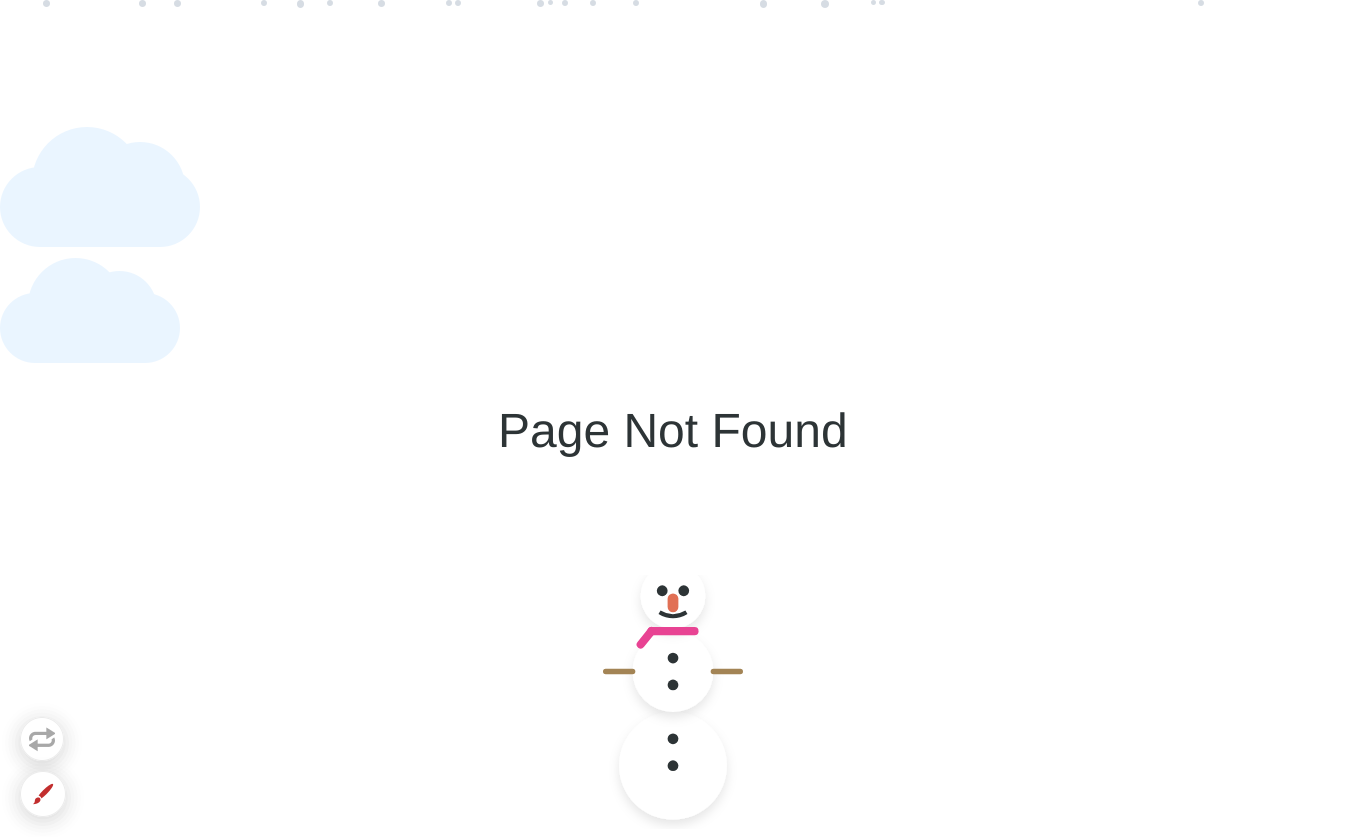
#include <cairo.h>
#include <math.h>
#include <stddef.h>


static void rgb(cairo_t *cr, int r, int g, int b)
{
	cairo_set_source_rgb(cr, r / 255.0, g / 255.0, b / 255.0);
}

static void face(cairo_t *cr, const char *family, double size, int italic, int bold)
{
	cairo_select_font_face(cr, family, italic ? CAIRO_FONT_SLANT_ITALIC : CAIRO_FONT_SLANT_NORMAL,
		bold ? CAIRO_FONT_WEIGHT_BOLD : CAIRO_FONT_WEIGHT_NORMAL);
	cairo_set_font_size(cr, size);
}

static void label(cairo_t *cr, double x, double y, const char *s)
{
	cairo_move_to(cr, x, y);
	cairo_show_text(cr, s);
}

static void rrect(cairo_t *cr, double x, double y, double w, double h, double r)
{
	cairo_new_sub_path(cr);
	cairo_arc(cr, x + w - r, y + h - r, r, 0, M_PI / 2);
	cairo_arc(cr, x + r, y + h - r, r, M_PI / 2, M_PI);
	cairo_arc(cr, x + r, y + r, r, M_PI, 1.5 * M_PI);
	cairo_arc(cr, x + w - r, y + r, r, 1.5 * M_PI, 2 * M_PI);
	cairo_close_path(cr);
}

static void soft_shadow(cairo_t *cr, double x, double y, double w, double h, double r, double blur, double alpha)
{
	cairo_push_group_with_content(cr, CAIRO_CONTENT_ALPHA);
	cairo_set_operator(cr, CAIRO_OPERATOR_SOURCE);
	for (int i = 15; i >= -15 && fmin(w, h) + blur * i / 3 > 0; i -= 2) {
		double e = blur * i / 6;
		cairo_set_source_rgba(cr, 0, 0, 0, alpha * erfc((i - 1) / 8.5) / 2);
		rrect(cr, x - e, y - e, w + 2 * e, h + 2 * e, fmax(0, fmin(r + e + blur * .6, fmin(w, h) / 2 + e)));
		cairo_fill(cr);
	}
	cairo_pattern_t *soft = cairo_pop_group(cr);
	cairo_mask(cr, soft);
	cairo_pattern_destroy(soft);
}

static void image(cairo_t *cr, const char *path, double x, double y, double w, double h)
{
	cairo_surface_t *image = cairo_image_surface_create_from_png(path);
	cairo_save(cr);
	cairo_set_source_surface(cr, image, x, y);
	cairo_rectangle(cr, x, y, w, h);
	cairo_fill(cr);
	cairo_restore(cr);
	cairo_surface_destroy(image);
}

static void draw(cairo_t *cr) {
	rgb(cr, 255, 255, 255);
	cairo_paint(cr);
	rgb(cr, 214, 220, 227);
	cairo_arc(cr, 46.5, 3.5, 3.5, 0, 2 * M_PI);
	cairo_fill(cr);
	cairo_arc(cr, 142.5, 3.5, 3.5, 0, 2 * M_PI);
	cairo_fill(cr);
	cairo_arc(cr, 177.5, 3.5, 3.5, 0, 2 * M_PI);
	cairo_fill(cr);
	cairo_arc(cr, 264, 3, 3, 0, 2 * M_PI);
	cairo_fill(cr);
	rrect(cr, 297, 0, 7, 8, 3.5);
	cairo_fill(cr);
	cairo_arc(cr, 330, 3, 3, 0, 2 * M_PI);
	cairo_fill(cr);
	cairo_arc(cr, 381.5, 3.5, 3.5, 0, 2 * M_PI);
	cairo_fill(cr);
	cairo_arc(cr, 449, 3, 3, 0, 2 * M_PI);
	cairo_fill(cr);
	cairo_arc(cr, 458, 3, 3, 0, 2 * M_PI);
	cairo_fill(cr);
	cairo_arc(cr, 540.5, 3.5, 3.5, 0, 2 * M_PI);
	cairo_fill(cr);
	cairo_arc(cr, 550.5, 2.5, 2.5, 0, 2 * M_PI);
	cairo_fill(cr);
	cairo_arc(cr, 565, 3, 3, 0, 2 * M_PI);
	cairo_fill(cr);
	cairo_arc(cr, 593, 3, 3, 0, 2 * M_PI);
	cairo_fill(cr);
	cairo_arc(cr, 636, 3, 3, 0, 2 * M_PI);
	cairo_fill(cr);
	rrect(cr, 760, 0, 7, 8, 3.5);
	cairo_fill(cr);
	cairo_arc(cr, 825, 4, 4, 0, 2 * M_PI);
	cairo_fill(cr);
	cairo_arc(cr, 873.5, 2.5, 2.5, 0, 2 * M_PI);
	cairo_fill(cr);
	rrect(cr, 879, 0, 6, 5, 2.5);
	cairo_fill(cr);
	cairo_arc(cr, 1201, 3, 3, 0, 2 * M_PI);
	cairo_fill(cr);
	rgb(cr, 234, 245, 255);
	rrect(cr, 0, 167, 200, 80, 40);
	cairo_fill(cr);
	cairo_arc(cr, 87, 182, 55, 0, 2 * M_PI);
	cairo_fill(cr);
	cairo_arc(cr, 140, 187, 45, 0, 2 * M_PI);
	cairo_fill(cr);
	rrect(cr, 0, 293, 180, 70, 35);
	cairo_fill(cr);
	cairo_arc(cr, 75.5, 305.5, 47.5, 0, 2 * M_PI);
	cairo_fill(cr);
	cairo_arc(cr, 119.5, 308.5, 37.5, 0, 2 * M_PI);
	cairo_fill(cr);
	image(cr, "image0.png", 603, 575, 140, 254);
	face(cr, "Liberation Sans", 48, 0, 0);
	rgb(cr, 45, 52, 54);
	label(cr, 498, 447, "Page Not Found");
	cairo_save(cr);
	cairo_set_fill_rule(cr, CAIRO_FILL_RULE_EVEN_ODD);
	cairo_new_path(cr);
	cairo_move_to(cr, 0, 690);
	cairo_line_to(cr, 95, 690);
	cairo_line_to(cr, 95, 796);
	cairo_line_to(cr, 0, 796);
	cairo_close_path(cr);
	cairo_move_to(cr, 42, 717);
	cairo_curve_to(cr, 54, 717, 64, 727, 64, 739);
	cairo_curve_to(cr, 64, 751, 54, 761, 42, 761);
	cairo_curve_to(cr, 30, 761, 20, 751, 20, 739);
	cairo_curve_to(cr, 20, 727, 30, 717, 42, 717);
	cairo_close_path(cr);
	cairo_clip(cr);
	rgb(cr, 0, 0, 0);
	soft_shadow(cr, 20, 721, 44, 44, 22, 10, 0.15);
	cairo_restore(cr);
	cairo_set_source_rgba(cr, 1, 1, 1, 0.95);
	cairo_arc(cr, 42, 739, 22, 0, 2 * M_PI);
	cairo_fill(cr);
	cairo_arc(cr, 42, 739, 21.5, 0, 2 * M_PI);
	cairo_set_source_rgba(cr, 0, 0, 0, 0.08);
	cairo_set_line_width(cr, 1);
	cairo_stroke(cr);
	image(cr, "image1.png", 29, 727, 26, 25);
	cairo_save(cr);
	cairo_set_fill_rule(cr, CAIRO_FILL_RULE_EVEN_ODD);
	cairo_new_path(cr);
	cairo_move_to(cr, 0, 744);
	cairo_line_to(cr, 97, 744);
	cairo_line_to(cr, 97, 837);
	cairo_line_to(cr, 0, 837);
	cairo_close_path(cr);
	cairo_move_to(cr, 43, 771);
	cairo_curve_to(cr, 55.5, 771, 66, 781.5, 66, 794);
	cairo_curve_to(cr, 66, 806.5, 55.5, 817, 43, 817);
	cairo_curve_to(cr, 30.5, 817, 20, 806.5, 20, 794);
	cairo_curve_to(cr, 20, 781.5, 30.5, 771, 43, 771);
	cairo_close_path(cr);
	cairo_clip(cr);
	rgb(cr, 0, 0, 0);
	soft_shadow(cr, 20, 775, 46, 46, 23, 10, 0.15);
	cairo_restore(cr);
	cairo_set_source_rgba(cr, 1, 1, 1, 0.95);
	cairo_arc(cr, 43, 794, 23, 0, 2 * M_PI);
	cairo_fill(cr);
	cairo_arc(cr, 43, 794, 22.5, 0, 2 * M_PI);
	cairo_set_source_rgba(cr, 0, 0, 0, 0.08);
	cairo_stroke(cr);
	image(cr, "image2.png", 33, 783, 21, 22);
}

int main(void) {
	cairo_surface_t *surface = cairo_image_surface_create(CAIRO_FORMAT_RGB24, 1346, 837);
	cairo_t *cr = cairo_create(surface);
	cairo_font_options_t *options = cairo_font_options_create();
	cairo_font_options_set_hint_metrics(options, CAIRO_HINT_METRICS_OFF);
	cairo_font_options_set_hint_style(options, CAIRO_HINT_STYLE_NONE);
	cairo_set_font_options(cr, options);
	cairo_set_miter_limit(cr, 4);
	draw(cr);
	cairo_surface_write_to_png(surface, "render.png");
	cairo_font_options_destroy(options);
	cairo_destroy(cr);
	cairo_surface_destroy(surface);
	return 0;
}
